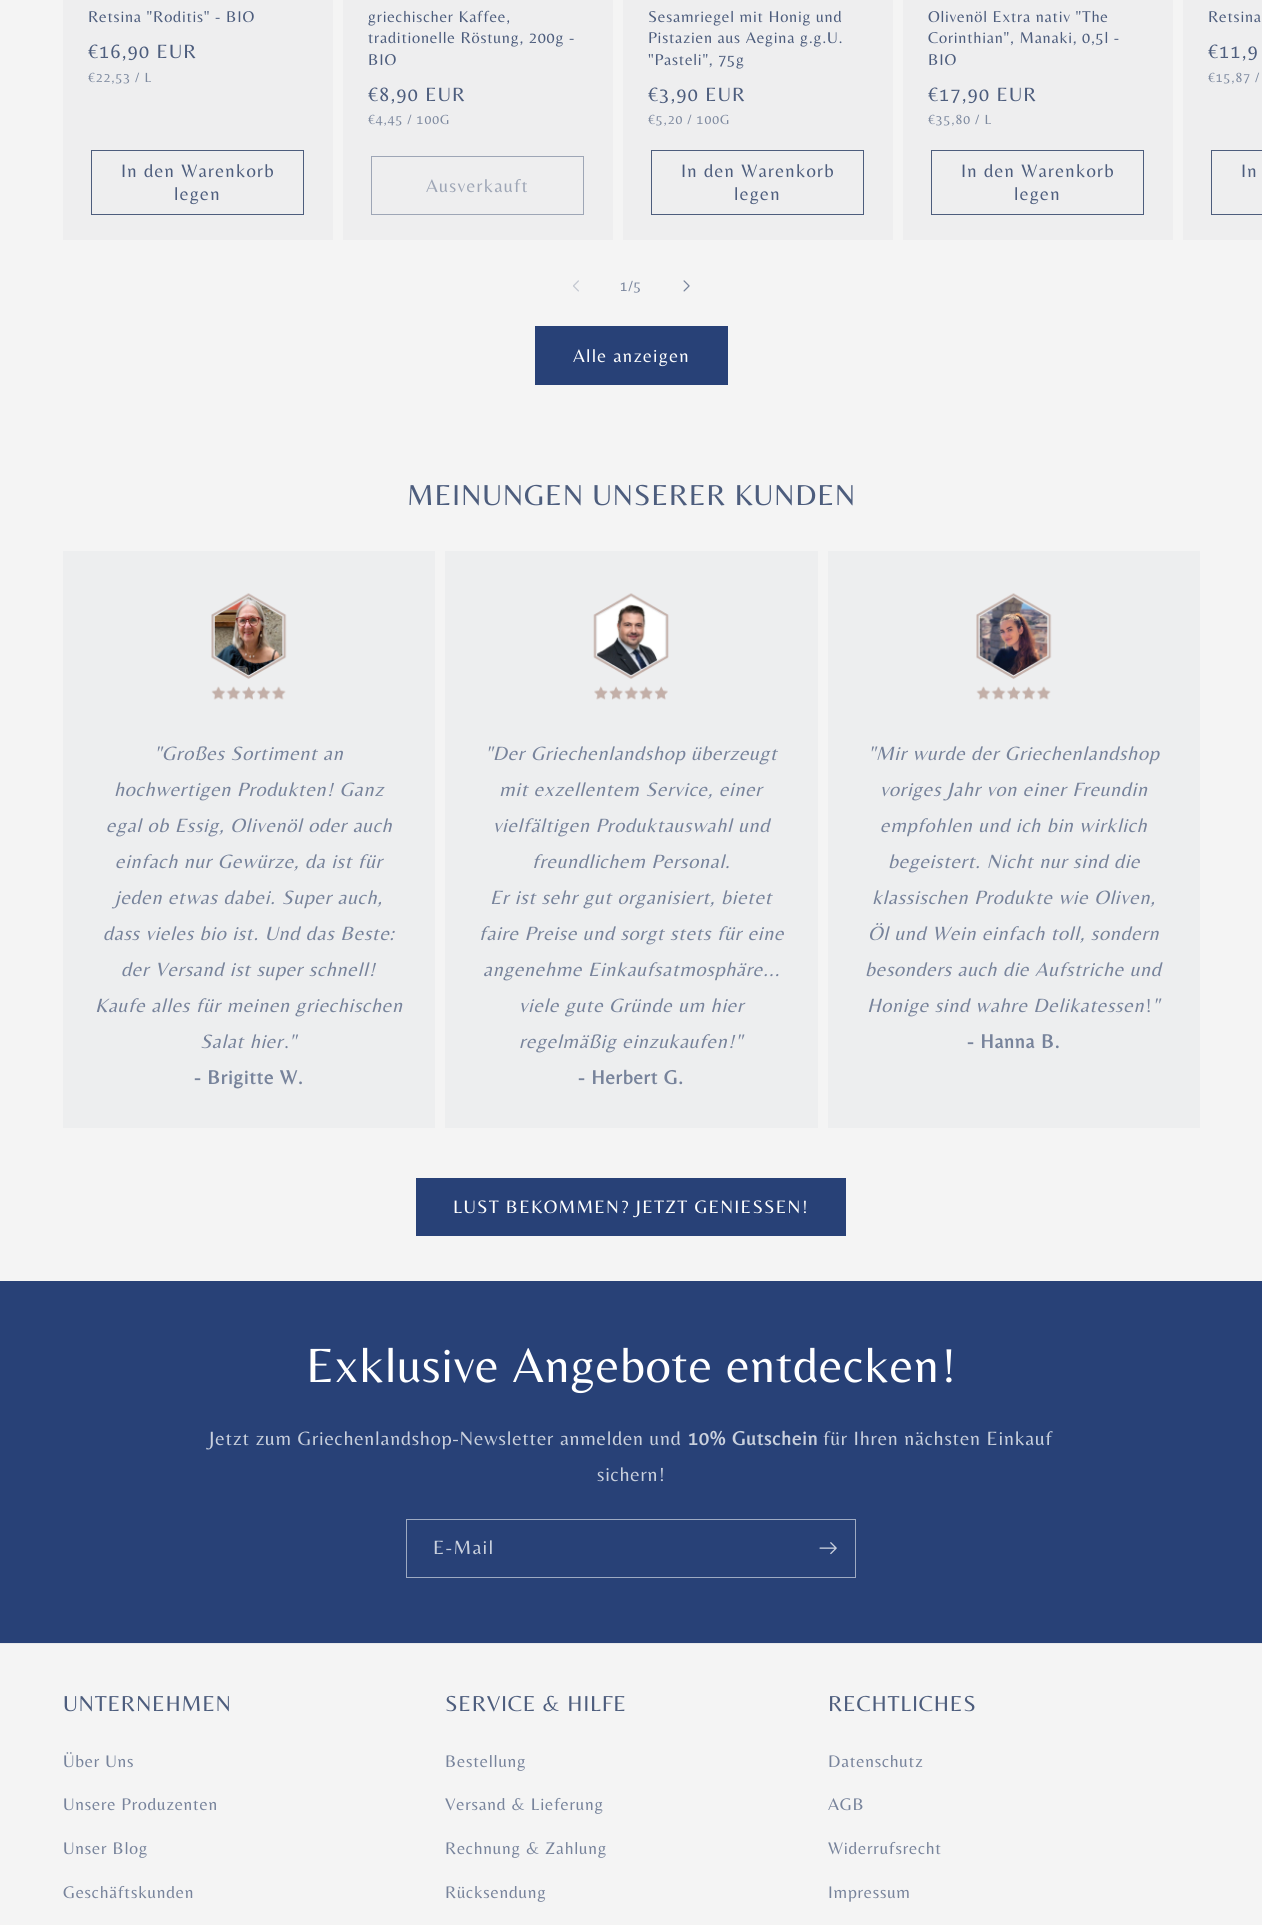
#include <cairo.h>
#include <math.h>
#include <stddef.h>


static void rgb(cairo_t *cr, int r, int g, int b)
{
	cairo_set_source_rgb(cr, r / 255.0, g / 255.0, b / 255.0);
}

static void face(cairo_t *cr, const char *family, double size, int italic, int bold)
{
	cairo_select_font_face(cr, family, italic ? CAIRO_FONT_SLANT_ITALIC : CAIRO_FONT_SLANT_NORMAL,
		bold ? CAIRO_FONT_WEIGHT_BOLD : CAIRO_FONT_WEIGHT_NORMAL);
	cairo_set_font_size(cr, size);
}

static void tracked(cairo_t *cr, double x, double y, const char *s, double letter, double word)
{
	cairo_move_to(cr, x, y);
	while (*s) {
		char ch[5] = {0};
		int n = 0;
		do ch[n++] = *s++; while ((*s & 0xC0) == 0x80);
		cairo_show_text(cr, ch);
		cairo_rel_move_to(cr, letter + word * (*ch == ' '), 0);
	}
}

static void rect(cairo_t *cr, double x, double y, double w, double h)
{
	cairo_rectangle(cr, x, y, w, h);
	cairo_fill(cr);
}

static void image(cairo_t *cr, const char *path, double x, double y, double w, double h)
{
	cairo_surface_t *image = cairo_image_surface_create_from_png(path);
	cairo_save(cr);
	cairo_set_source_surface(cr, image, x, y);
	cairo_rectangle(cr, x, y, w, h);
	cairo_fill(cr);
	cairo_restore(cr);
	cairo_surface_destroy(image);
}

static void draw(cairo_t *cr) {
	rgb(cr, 244, 244, 244);
	cairo_paint(cr);
	rgb(cr, 238, 238, 239);
	rect(cr, 63, 0, 270, 240);
	face(cr, "Belleza", 16.25, 0, 0);
	rgb(cr, 77, 93, 125);
	tracked(cr, 88, 22, "Retsina \"Roditis\" - BIO", 0.75, 0);
	face(cr, "Belleza", 20, 0, 0);
	tracked(cr, 88, 58, "€16,90 EUR", 1.25, 0);
	face(cr, "Belleza", 13.75, 0, 0);
	rgb(cr, 125, 137, 159);
	tracked(cr, 88, 82, "€22,53 / L", 0.9, 0);
	cairo_rectangle(cr, 91.5, 150.5, 212, 64);
	rgb(cr, 77, 93, 125);
	cairo_set_line_width(cr, 1);
	cairo_stroke(cr);
	face(cr, "Belleza", 18.75, 0, 0);
	tracked(cr, 121, 177, "In den Warenkorb", 1.25, 0);
	tracked(cr, 174, 200, "legen", 1.25, 0);
	rgb(cr, 238, 238, 239);
	rect(cr, 343, 0, 270, 240);
	face(cr, "Belleza", 16.25, 0, 0);
	rgb(cr, 77, 93, 125);
	tracked(cr, 368, 22, "griechischer Kaffee,", 0.75, 0);
	tracked(cr, 368, 43, "traditionelle Röstung, 200g -", 0.75, 0);
	tracked(cr, 368, 65, "BIO", 0.75, 0);
	face(cr, "Belleza", 20, 0, 0);
	tracked(cr, 368, 101, "€8,90 EUR", 1.25, 0);
	face(cr, "Belleza", 13.75, 0, 0);
	rgb(cr, 125, 137, 159);
	tracked(cr, 368, 124, "€4,45 / 100G", 0.9, 0);
	cairo_rectangle(cr, 371.5, 156.5, 212, 58);
	rgb(cr, 158, 166, 182);
	cairo_stroke(cr);
	face(cr, "Belleza", 18.75, 0, 0);
	tracked(cr, 426, 192, "Ausverkauft", 1.25, 0);
	rgb(cr, 238, 238, 239);
	rect(cr, 623, 0, 270, 240);
	face(cr, "Belleza", 16.25, 0, 0);
	rgb(cr, 77, 93, 125);
	tracked(cr, 648, 22, "Sesamriegel mit Honig und", 0.75, 0);
	tracked(cr, 648, 43, "Pistazien aus Aegina g.g.U.", 0.75, 0);
	tracked(cr, 648, 65, "\"Pasteli\", 75g", 0.75, 0);
	face(cr, "Belleza", 20, 0, 0);
	tracked(cr, 648, 101, "€3,90 EUR", 1.25, 0);
	face(cr, "Belleza", 13.75, 0, 0);
	rgb(cr, 125, 137, 159);
	tracked(cr, 648, 124, "€5,20 / 100G", 0.9, 0);
	cairo_rectangle(cr, 651.5, 150.5, 212, 64);
	rgb(cr, 77, 93, 125);
	cairo_stroke(cr);
	face(cr, "Belleza", 18.75, 0, 0);
	tracked(cr, 681, 177, "In den Warenkorb", 1.25, 0);
	tracked(cr, 734, 200, "legen", 1.25, 0);
	rgb(cr, 238, 238, 239);
	rect(cr, 903, 0, 270, 240);
	face(cr, "Belleza", 16.25, 0, 0);
	rgb(cr, 77, 93, 125);
	tracked(cr, 928, 22, "Olivenöl Extra nativ \"The", 0.75, 0);
	tracked(cr, 928, 43, "Corinthian\", Manaki, 0,5l -", 0.75, 0);
	tracked(cr, 928, 65, "BIO", 0.75, 0);
	face(cr, "Belleza", 20, 0, 0);
	tracked(cr, 928, 101, "€17,90 EUR", 1.25, 0);
	face(cr, "Belleza", 13.75, 0, 0);
	rgb(cr, 125, 137, 159);
	tracked(cr, 928, 124, "€35,80 / L", 0.9, 0);
	cairo_rectangle(cr, 931.5, 150.5, 212, 64);
	rgb(cr, 77, 93, 125);
	cairo_stroke(cr);
	face(cr, "Belleza", 18.75, 0, 0);
	tracked(cr, 961, 177, "In den Warenkorb", 1.25, 0);
	tracked(cr, 1014, 200, "legen", 1.25, 0);
	rgb(cr, 238, 238, 239);
	rect(cr, 1183, 0, 79, 240);
	face(cr, "Belleza", 16.25, 0, 0);
	rgb(cr, 77, 93, 125);
	tracked(cr, 1208, 22, "Retsina", 0.75, 0);
	face(cr, "Belleza", 20, 0, 0);
	tracked(cr, 1208, 58, "€11,9", 1.25, 0);
	face(cr, "Belleza", 13.75, 0, 0);
	rgb(cr, 125, 137, 159);
	tracked(cr, 1208, 82, "€15,87 /", 0.9, 0);
	cairo_rectangle(cr, 1211.5, 150.5, 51, 64);
	rgb(cr, 77, 93, 125);
	cairo_stroke(cr);
	face(cr, "Belleza", 18.75, 0, 0);
	tracked(cr, 1241, 177, "In", 1.25, 0);
	image(cr, "image0.png", 573, 280, 6, 12);
	face(cr, "Belleza", 15, 0, 0);
	rgb(cr, 119, 131, 155);
	tracked(cr, 620, 291, "1/5", 0.9, 0);
	image(cr, "image1.png", 683, 280, 7, 12);
	rgb(cr, 40, 65, 119);
	rect(cr, 535, 326, 193, 59);
	face(cr, "Belleza", 18.75, 0, 0);
	rgb(cr, 255, 255, 255);
	tracked(cr, 573, 362, "Alle anzeigen", 1.25, 0);
	face(cr, "Belleza", 30, 0, 0);
	rgb(cr, 77, 93, 125);
	tracked(cr, 407, 505, "MEINUNGEN UNSERER KUNDEN", 0.75, 0);
	rgb(cr, 237, 238, 239);
	rect(cr, 63, 551, 372, 577);
	image(cr, "image2.png", 211, 593, 76, 107);
	face(cr, "Belleza", 20, 1, 0);
	rgb(cr, 119, 131, 155);
	tracked(cr, 154, 760, "\"Großes Sortiment an", 0.75, 0);
	tracked(cr, 114, 796, "hochwertigen Produkten! Ganz", 0.75, 0);
	tracked(cr, 106, 832, "egal ob Essig, Olivenöl oder auch", 0.75, 0);
	tracked(cr, 115, 868, "einfach nur Gewürze, da ist für", 0.75, 0);
	tracked(cr, 115, 904, "jeden etwas dabei. Super auch,", 0.75, 0);
	tracked(cr, 103, 940, "dass vieles bio ist. Und das Beste:", 0.75, 0);
	tracked(cr, 121, 976, "der Versand ist super schnell!", 0.75, 0);
	tracked(cr, 95, 1012, "Kaufe alles für meinen griechischen", 0.75, 0);
	tracked(cr, 200, 1048, "Salat hier \"", 0.75, 0);
	face(cr, "Belleza", 20, 0, 0);
	tracked(cr, 284, 1048, ".", 0.75, 0);
	face(cr, "Belleza", 20, 0, 1);
	tracked(cr, 194, 1084, "- Brigitte W.", 0.75, 0);
	rgb(cr, 237, 238, 239);
	rect(cr, 445, 551, 373, 577);
	image(cr, "image3.png", 593, 593, 76, 107);
	face(cr, "Belleza", 20, 1, 0);
	rgb(cr, 119, 131, 155);
	tracked(cr, 485, 760, "\"Der Griechenlandshop überzeugt", 0.75, 0);
	tracked(cr, 499, 796, "mit exzellentem Service, einer", 0.75, 0);
	tracked(cr, 493, 832, "vielfältigen Produktauswahl und", 0.75, 0);
	tracked(cr, 532, 868, "freundlichem Personal.", 0.75, 0);
	tracked(cr, 490, 904, "Er ist sehr gut organisiert, bietet", 0.75, 0);
	tracked(cr, 479, 940, "faire Preise und sorgt stets für eine", 0.75, 0);
	tracked(cr, 483, 976, "angenehme Einkaufsatmosphäre...", 0.75, 0);
	tracked(cr, 519, 1012, "viele gute Gründe um hier", 0.75, 0);
	tracked(cr, 519, 1048, "regelmäßig einzukaufen!\"", 0.75, 0);
	face(cr, "Belleza", 20, 0, 1);
	tracked(cr, 578, 1084, "- Herbert G.", 0.75, 0);
	rgb(cr, 237, 238, 239);
	rect(cr, 828, 551, 372, 577);
	image(cr, "image4.png", 976, 593, 76, 107);
	face(cr, "Belleza", 20, 1, 0);
	rgb(cr, 119, 131, 155);
	tracked(cr, 868, 760, "\"Mir wurde der Griechenlandshop", 0.75, 0);
	tracked(cr, 880, 796, "voriges Jahr von einer Freundin", 0.75, 0);
	tracked(cr, 880, 832, "empfohlen und ich bin wirklich", 0.75, 0);
	tracked(cr, 888, 868, "begeistert. Nicht nur sind die", 0.75, 0);
	tracked(cr, 872, 904, "klassischen Produkte wie Oliven,", 0.75, 0);
	tracked(cr, 868, 940, "Öl und Wein einfach toll, sondern", 0.75, 0);
	tracked(cr, 865, 976, "besonders auch die Aufstriche und", 0.75, 0);
	tracked(cr, 867, 1012, "Honige sind wahre Delikatessen", 0.75, 0);
	face(cr, "Belleza", 20, 0, 0);
	tracked(cr, 1145, 1012, "!", 0.75, 0);
	face(cr, "Belleza", 20, 1, 0);
	tracked(cr, 1152, 1012, "\"", 0.75, 0);
	face(cr, "Belleza", 20, 0, 1);
	tracked(cr, 967, 1048, "- Hanna B.", 0.75, 0);
	rgb(cr, 40, 65, 119);
	rect(cr, 416, 1178, 430, 58);
	face(cr, "Belleza", 18.75, 0, 0);
	rgb(cr, 255, 255, 255);
	tracked(cr, 453, 1213, "LUST BEKOMMEN? JETZT GENIESSEN!", 1.25, 0);
	rgb(cr, 40, 65, 119);
	rect(cr, 0, 1281, 1262, 362);
	face(cr, "Belleza", 50, 0, 0);
	rgb(cr, 255, 255, 255);
	tracked(cr, 306, 1382, "Exklusive Angebote entdecken!", 0.75, 0);
	face(cr, "Belleza", 20, 0, 0);
	rgb(cr, 201, 208, 221);
	tracked(cr, 209, 1445, "Jetzt zum Griechenlandshop-Newsletter anmelden und", 0.75, 0);
	face(cr, "Belleza", 20, 0, 1);
	tracked(cr, 688, 1445, "10% Gutschein", 0.75, 0);
	face(cr, "Belleza", 20, 0, 0);
	tracked(cr, 823, 1445, "für Ihren nächsten Einkauf", 0.75, 0);
	tracked(cr, 597, 1481, "sichern!", 0.75, 0);
	cairo_rectangle(cr, 406.5, 1519.5, 449, 58);
	rgb(cr, 158, 170, 194);
	cairo_stroke(cr);
	rgb(cr, 201, 208, 221);
	tracked(cr, 433, 1554, "E-Mail", 1.25, 0);
	image(cr, "image5.png", 819, 1542, 18, 13);
	rgb(cr, 231, 232, 234);
	rect(cr, 0, 1643, 1262, 1);
	face(cr, "Belleza", 22.5, 0, 0);
	rgb(cr, 77, 93, 125);
	tracked(cr, 63, 1711, "UNTERNEHMEN", 0.75, 0);
	face(cr, "Belleza", 17.5, 0, 0);
	rgb(cr, 119, 131, 155);
	tracked(cr, 63, 1767, "Über Uns", 0.75, 0);
	tracked(cr, 63, 1810, "Unsere Produzenten", 0.75, 0);
	tracked(cr, 63, 1854, "Unser Blog", 0.75, 0);
	tracked(cr, 63, 1898, "Geschäftskunden", 0.75, 0);
	face(cr, "Belleza", 22.5, 0, 0);
	rgb(cr, 77, 93, 125);
	tracked(cr, 445, 1711, "SERVICE & HILFE", 0.75, 0);
	face(cr, "Belleza", 17.5, 0, 0);
	rgb(cr, 119, 131, 155);
	tracked(cr, 445, 1767, "Bestellung", 0.75, 0);
	tracked(cr, 445, 1810, "Versand & Lieferung", 0.75, 0);
	tracked(cr, 445, 1854, "Rechnung & Zahlung", 0.75, 0);
	tracked(cr, 445, 1898, "Rücksendung", 0.75, 0);
	face(cr, "Belleza", 22.5, 0, 0);
	rgb(cr, 77, 93, 125);
	tracked(cr, 828, 1711, "RECHTLICHES", 0.75, 0);
	face(cr, "Belleza", 17.5, 0, 0);
	rgb(cr, 119, 131, 155);
	tracked(cr, 828, 1767, "Datenschutz", 0.75, 0);
	tracked(cr, 828, 1810, "AGB", 0.75, 0);
	tracked(cr, 828, 1854, "Widerrufsrecht", 0.75, 0);
	tracked(cr, 828, 1898, "Impressum", 0.75, 0);
}

int main(void) {
	cairo_surface_t *surface = cairo_image_surface_create(CAIRO_FORMAT_RGB24, 1262, 1925);
	cairo_t *cr = cairo_create(surface);
	cairo_font_options_t *options = cairo_font_options_create();
	cairo_font_options_set_hint_metrics(options, CAIRO_HINT_METRICS_OFF);
	cairo_font_options_set_hint_style(options, CAIRO_HINT_STYLE_NONE);
	cairo_set_font_options(cr, options);
	cairo_set_miter_limit(cr, 4);
	draw(cr);
	cairo_surface_write_to_png(surface, "render.png");
	cairo_font_options_destroy(options);
	cairo_destroy(cr);
	cairo_surface_destroy(surface);
	return 0;
}
